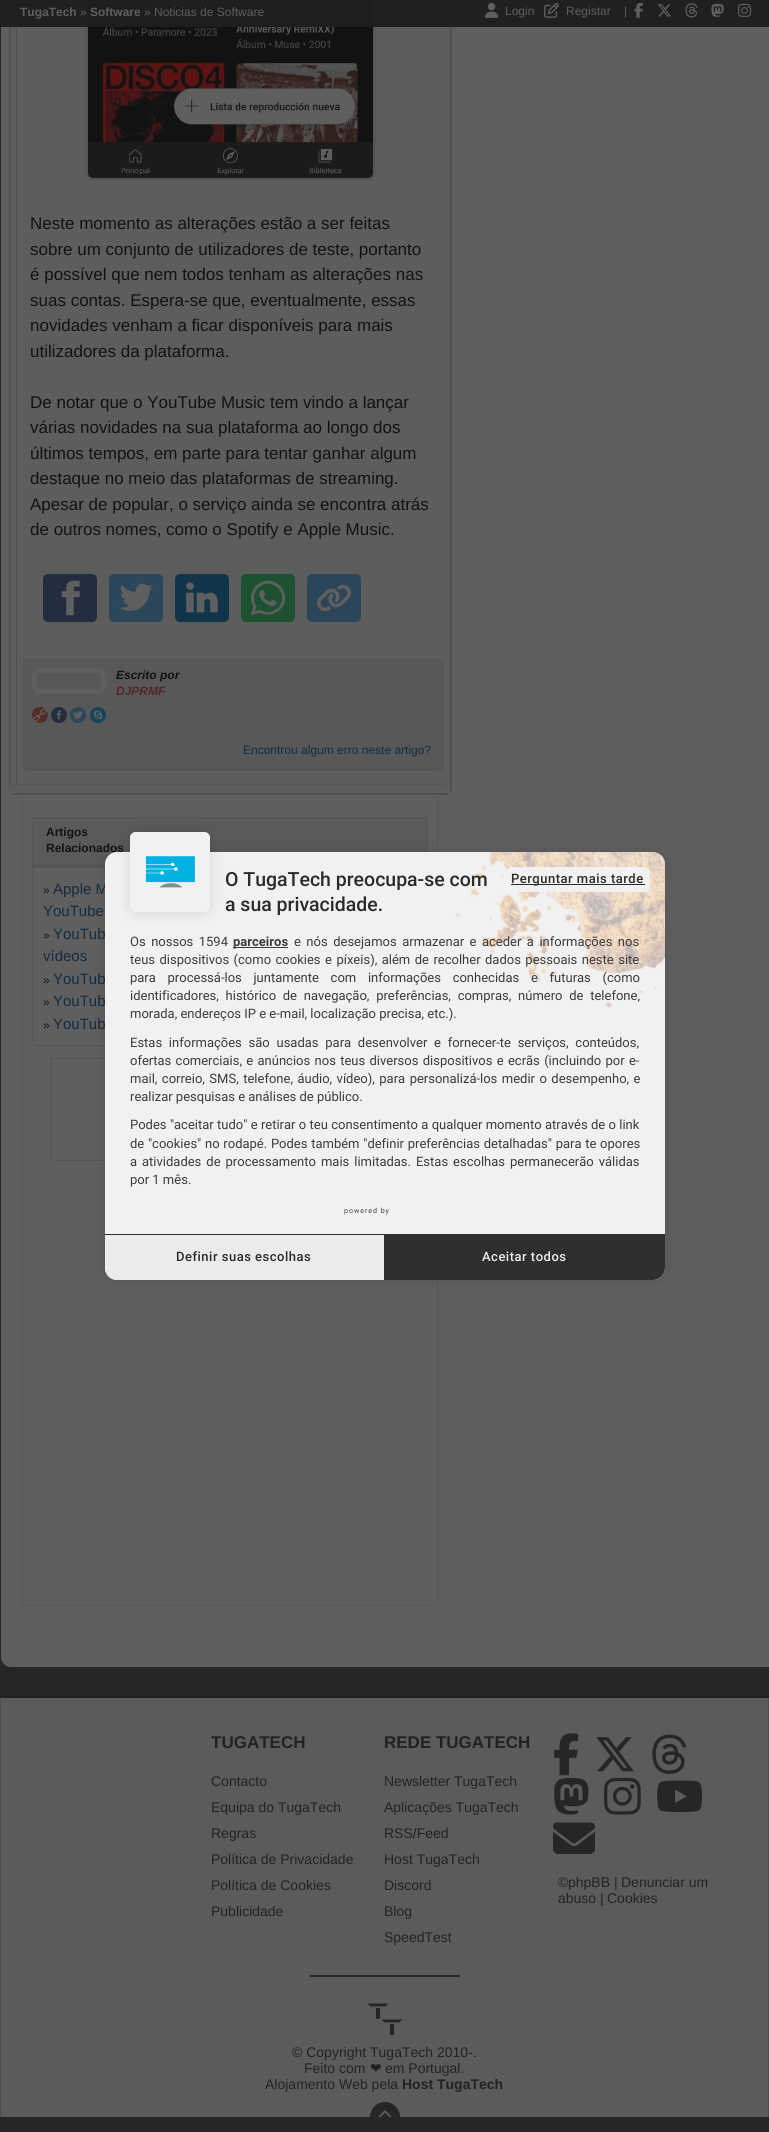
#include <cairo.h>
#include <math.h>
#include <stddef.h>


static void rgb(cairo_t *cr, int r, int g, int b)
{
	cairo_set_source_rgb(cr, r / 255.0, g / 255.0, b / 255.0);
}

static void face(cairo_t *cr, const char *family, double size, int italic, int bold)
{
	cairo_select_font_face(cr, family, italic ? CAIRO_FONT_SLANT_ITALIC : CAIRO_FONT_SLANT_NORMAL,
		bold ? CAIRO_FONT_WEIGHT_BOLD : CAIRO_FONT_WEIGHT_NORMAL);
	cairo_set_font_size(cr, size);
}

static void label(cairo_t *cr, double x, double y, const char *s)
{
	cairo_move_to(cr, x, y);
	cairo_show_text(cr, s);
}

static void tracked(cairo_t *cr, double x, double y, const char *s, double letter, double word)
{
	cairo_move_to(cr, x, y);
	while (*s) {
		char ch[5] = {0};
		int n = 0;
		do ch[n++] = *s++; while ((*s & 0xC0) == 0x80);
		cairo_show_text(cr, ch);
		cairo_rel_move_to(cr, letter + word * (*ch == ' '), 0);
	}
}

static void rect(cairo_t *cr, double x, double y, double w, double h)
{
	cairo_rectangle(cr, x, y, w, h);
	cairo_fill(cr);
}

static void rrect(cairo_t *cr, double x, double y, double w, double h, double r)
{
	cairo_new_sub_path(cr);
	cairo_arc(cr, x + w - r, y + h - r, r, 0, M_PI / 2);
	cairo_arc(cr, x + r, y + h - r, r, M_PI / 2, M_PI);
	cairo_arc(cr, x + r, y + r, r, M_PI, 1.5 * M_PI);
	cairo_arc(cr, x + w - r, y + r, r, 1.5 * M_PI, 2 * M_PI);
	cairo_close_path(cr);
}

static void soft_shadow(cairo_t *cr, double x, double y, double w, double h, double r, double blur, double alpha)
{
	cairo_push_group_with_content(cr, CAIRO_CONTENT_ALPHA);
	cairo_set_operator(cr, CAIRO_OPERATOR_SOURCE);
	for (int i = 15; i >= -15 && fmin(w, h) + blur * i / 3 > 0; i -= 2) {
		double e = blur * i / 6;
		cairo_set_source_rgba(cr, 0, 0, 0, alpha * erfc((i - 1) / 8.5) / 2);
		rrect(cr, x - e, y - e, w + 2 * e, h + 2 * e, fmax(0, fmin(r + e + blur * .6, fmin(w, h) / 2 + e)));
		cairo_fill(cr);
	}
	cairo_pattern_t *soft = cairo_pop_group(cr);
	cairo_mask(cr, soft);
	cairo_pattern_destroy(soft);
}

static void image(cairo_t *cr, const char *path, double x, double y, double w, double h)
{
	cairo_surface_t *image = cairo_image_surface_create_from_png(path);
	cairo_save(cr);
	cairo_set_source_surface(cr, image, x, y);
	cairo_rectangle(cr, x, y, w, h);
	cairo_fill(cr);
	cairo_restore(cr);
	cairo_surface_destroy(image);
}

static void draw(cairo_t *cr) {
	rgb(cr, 38, 38, 38);
	cairo_paint(cr);
	rgb(cr, 95, 95, 95);
	rrect(cr, 3.5, -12.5, 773, 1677, 7.5);
	cairo_fill_preserve(cr);
	cairo_set_line_width(cr, 5);
	cairo_stroke(cr);
	rgb(cr, 65, 65, 65);
	soft_shadow(cr, 10, -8, 441, 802, 5, 1, 1);
	rgb(cr, 93, 93, 93);
	cairo_new_path(cr);
	cairo_move_to(cr, 10, -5);
	cairo_line_to(cr, 451, -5);
	cairo_line_to(cr, 451, 788);
	cairo_curve_to(cr, 451, 791, 449, 793, 446, 793);
	cairo_line_to(cr, 15, 793);
	cairo_curve_to(cr, 12, 793, 10, 791, 10, 788);
	cairo_close_path(cr);
	cairo_fill(cr);
	rgb(cr, 79, 79, 79);
	rect(cr, 450, 0, 1, 791);
	rect(cr, 10, 0, 1, 791);
	rect(cr, 16, 0, 1, 792);
	rgb(cr, 70, 70, 70);
	soft_shadow(cr, 88, -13, 285, 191, 5, 2.5, 1);
	image(cr, "image7.png", 88, 0, 285, 178);
	cairo_set_source_rgba(cr, 0.122, 0.122, 0.122, 0.98);
	rect(cr, 0, 0, 769, 27);
	face(cr, "Liberation Sans", 12, 0, 1);
	rgb(cr, 95, 95, 95);
	label(cr, 20, 16, "TugaTech");
	face(cr, "Liberation Sans", 12, 0, 0);
	label(cr, 80, 16, "»");
	face(cr, "Liberation Sans", 12, 0, 1);
	label(cr, 90, 16, "Software");
	face(cr, "Liberation Sans", 12, 0, 0);
	label(cr, 144, 16, "» Noticias de Software");
	image(cr, "image0.png", 485, 2, 14, 16);
	label(cr, 505, 15, "Login");
	image(cr, "image1.png", 544, 3, 15, 15);
	label(cr, 566, 15, "Registar");
	label(cr, 624, 15, "|");
	image(cr, "image2.png", 634, 2, 9, 16);
	image(cr, "image3.png", 657, 4, 15, 13);
	image(cr, "image4.png", 685, 3, 13, 15);
	image(cr, "image5.png", 711, 3, 13, 14);
	image(cr, "image6.png", 738, 3, 14, 14);
	rect(cr, 11, 792, 439, 1);
	face(cr, "Liberation Sans", 17, 0, 0);
	rgb(cr, 18, 18, 18);
	label(cr, 30, 229, "Neste momento as alterações estão a ser feitas");
	label(cr, 30, 255, "sobre um conjunto de utilizadores de teste, portanto");
	label(cr, 30, 280, "é possível que nem todos tenham as alterações nas");
	label(cr, 30, 306, "suas contas. Espera-se que, eventualmente, essas");
	label(cr, 30, 331, "novidades venham a ficar disponíveis para mais");
	label(cr, 30, 357, "utilizadores da plataforma.");
	label(cr, 30, 408, "De notar que o YouTube Music tem vindo a lançar");
	label(cr, 30, 433, "várias novidades na sua plataforma ao longo dos");
	label(cr, 30, 459, "últimos tempos, em parte para tentar ganhar algum");
	label(cr, 30, 484, "destaque no meio das plataformas de streaming.");
	label(cr, 30, 510, "Apesar de popular, o serviço ainda se encontra atrás");
	label(cr, 30, 535, "de outros nomes, como o Spotify e Apple Music.");
	rgb(cr, 36, 45, 64);
	rrect(cr, 43, 574, 54, 48, 5);
	cairo_fill(cr);
	image(cr, "image8.png", 61, 580, 20, 36);
	rgb(cr, 44, 70, 90);
	rrect(cr, 109, 574, 54, 48, 5);
	cairo_fill(cr);
	image(cr, "image9.png", 119, 583, 34, 28);
	rgb(cr, 18, 54, 73);
	rrect(cr, 175, 574, 54, 48, 5);
	cairo_fill(cr);
	image(cr, "image10.png", 186, 582, 32, 31);
	rgb(cr, 29, 82, 49);
	rrect(cr, 241, 574, 54, 48, 5);
	cairo_fill(cr);
	image(cr, "image11.png", 251, 580, 35, 35);
	rgb(cr, 43, 69, 89);
	rrect(cr, 307, 574, 54, 48, 5);
	cairo_fill(cr);
	image(cr, "image12.png", 317, 584, 34, 28);
	rgb(cr, 79, 79, 79);
	soft_shadow(cr, 23, 659, 420, 111, 3, 1, 1);
	rgb(cr, 88, 88, 89);
	rrect(cr, 22, 658, 420, 111, 3);
	cairo_fill(cr);
	rrect(cr, 34.5, 670.5, 69, 21, 5.5);
	rgb(cr, 95, 95, 95);
	cairo_stroke(cr);
	face(cr, "Liberation Sans", 12, 1, 1);
	rgb(cr, 18, 18, 18);
	label(cr, 116, 679, "Escrito por");
	rgb(cr, 85, 37, 37);
	label(cr, 116, 695, "DJPRMF");
	image(cr, "image13.png", 32, 707, 16, 16);
	image(cr, "image14.png", 51, 707, 16, 16);
	image(cr, "image15.png", 70, 707, 16, 16);
	image(cr, "image16.png", 90, 707, 16, 16);
	face(cr, "Liberation Sans", 12, 0, 0);
	rgb(cr, 18, 44, 65);
	label(cr, 243, 754, "Encontrou algum erro neste artigo?");
	rgb(cr, 92, 92, 92);
	rect(cr, 10, 785, 7, 7);
	rgb(cr, 86, 86, 86);
	rect(cr, 10, 784, 435, 1);
	cairo_rectangle(cr, 22.5, 794.5, 415, 811);
	rgb(cr, 88, 88, 88);
	cairo_set_line_width(cr, 1);
	cairo_stroke(cr);
	rgb(cr, 90, 90, 90);
	rect(cr, 33, 818, 394, 46);
	rgb(cr, 85, 85, 85);
	rect(cr, 32, 817, 396, 1);
	rect(cr, 427, 817, 1, 35);
	rect(cr, 32, 864, 73, 3);
	rect(cr, 32, 817, 1, 50);
	face(cr, "Liberation Sans", 12, 0, 1);
	rgb(cr, 18, 18, 18);
	label(cr, 46, 836, "Artigos");
	label(cr, 46, 852, "Relacionados");
	cairo_new_path(cr);
	cairo_move_to(cr, 32.5, 867.5);
	cairo_line_to(cr, 427.5, 867.5);
	cairo_line_to(cr, 427.5, 1041);
	cairo_curve_to(cr, 427.5, 1043.5, 425.5, 1045.5, 423, 1045.5);
	cairo_line_to(cr, 37, 1045.5);
	cairo_curve_to(cr, 34.5, 1045.5, 32.5, 1043.5, 32.5, 1041);
	cairo_close_path(cr);
	rgb(cr, 85, 85, 85);
	cairo_stroke(cr);
	face(cr, "Liberation Sans", 12, 0, 0);
	rgb(cr, 18, 18, 18);
	label(cr, 43, 894, "»");
	face(cr, "Liberation Sans", 15, 0, 0);
	rgb(cr, 18, 44, 65);
	label(cr, 53, 894, "Apple M");
	label(cr, 43, 916, "YouTube");
	face(cr, "Liberation Sans", 12, 0, 0);
	rgb(cr, 18, 18, 18);
	label(cr, 43, 939, "»");
	face(cr, "Liberation Sans", 15, 0, 0);
	rgb(cr, 18, 44, 65);
	label(cr, 53, 939, "YouTub");
	label(cr, 43, 961, "vídeos");
	face(cr, "Liberation Sans", 12, 0, 0);
	rgb(cr, 18, 18, 18);
	label(cr, 43, 984, "»");
	face(cr, "Liberation Sans", 15, 0, 0);
	rgb(cr, 18, 44, 65);
	label(cr, 53, 984, "YouTub");
	face(cr, "Liberation Sans", 12, 0, 0);
	rgb(cr, 18, 18, 18);
	label(cr, 43, 1006, "»");
	face(cr, "Liberation Sans", 15, 0, 0);
	rgb(cr, 18, 44, 65);
	label(cr, 53, 1006, "YouTub");
	face(cr, "Liberation Sans", 12, 0, 0);
	rgb(cr, 18, 18, 18);
	label(cr, 43, 1029, "»");
	face(cr, "Liberation Sans", 15, 0, 0);
	rgb(cr, 18, 44, 65);
	label(cr, 53, 1029, "YouTub");
	cairo_new_path(cr);
	cairo_move_to(cr, 50.5, 1058.5);
	cairo_line_to(cr, 409.5, 1058.5);
	cairo_line_to(cr, 409.5, 1156);
	cairo_curve_to(cr, 409.5, 1158.5, 407.5, 1160.5, 405, 1160.5);
	cairo_line_to(cr, 55, 1160.5);
	cairo_curve_to(cr, 52.5, 1160.5, 50.5, 1158.5, 50.5, 1156);
	cairo_close_path(cr);
	rgb(cr, 85, 85, 85);
	cairo_stroke(cr);
	rgb(cr, 34, 34, 34);
	rect(cr, 0, 1696, 769, 1);
	rgb(cr, 91, 91, 91);
	rect(cr, 1, 1699, 767, 418);
	rect(cr, 0, 1698, 769, 1);
	rgb(cr, 76, 76, 76);
	rect(cr, 768, 1698, 1, 419);
	rect(cr, 0, 1698, 1, 419);
	rgb(cr, 32, 32, 32);
	rect(cr, 0, 1697, 769, 1);
	face(cr, "Liberation Sans", 17, 0, 1);
	rgb(cr, 34, 34, 34);
	label(cr, 211, 1748, "TUGATECH");
	face(cr, "Liberation Sans", 14, 0, 0);
	label(cr, 211, 1786, "Contacto");
	label(cr, 211, 1812, "Equipa do TugaTech");
	label(cr, 211, 1838, "Regras");
	label(cr, 211, 1864, "Política de Privacidade");
	label(cr, 211, 1890, "Política de Cookies");
	label(cr, 211, 1916, "Publicidade");
	face(cr, "Liberation Sans", 17, 0, 1);
	label(cr, 384, 1748, "REDE TUGATECH");
	face(cr, "Liberation Sans", 14, 0, 0);
	label(cr, 384, 1786, "Newsletter TugaTech");
	label(cr, 384, 1812, "Aplicações TugaTech");
	label(cr, 384, 1838, "RSS/Feed");
	label(cr, 384, 1864, "Host TugaTech");
	label(cr, 384, 1890, "Discord");
	label(cr, 384, 1916, "Blog");
	label(cr, 384, 1942, "SpeedTest");
	image(cr, "image17.png", 554, 1733, 25, 43);
	image(cr, "image18.png", 596, 1737, 38, 35);
	image(cr, "image19.png", 652, 1734, 35, 40);
	image(cr, "image20.png", 554, 1777, 35, 38);
	image(cr, "image21.png", 604, 1777, 37, 38);
	image(cr, "image22.png", 657, 1780, 45, 32);
	image(cr, "image23.png", 553, 1822, 42, 32);
	label(cr, 558, 1887, "©");
	label(cr, 568, 1887, "phpBB");
	label(cr, 614, 1887, "|");
	label(cr, 621, 1887, "Denunciar um");
	label(cr, 558, 1903, "abuso");
	label(cr, 600, 1903, "|");
	label(cr, 607, 1903, "Cookies");
	rgb(cr, 38, 38, 38);
	rect(cr, 310, 1975, 150, 2);
	image(cr, "image24.png", 367, 2003, 36, 32);
	rgb(cr, 34, 34, 34);
	label(cr, 292, 2057, "© Copyright TugaTech 2010-.");
	label(cr, 304, 2073, "Feito com");
	face(cr, "DejaVu Sans", 14, 0, 0);
	label(cr, 370, 2073, "❤");
	face(cr, "Liberation Sans", 14, 0, 0);
	label(cr, 385, 2073, "em Portugal.");
	label(cr, 265, 2089, "Alojamento Web pela");
	face(cr, "Liberation Sans", 14, 0, 1);
	label(cr, 402, 2089, "Host TugaTech");
	rgb(cr, 37, 38, 38);
	cairo_new_path(cr);
	cairo_arc(cr, 385, 2117, 15, 0, 2 * M_PI);
	cairo_fill(cr);
	image(cr, "image25.png", 378, 2110, 14, 8);
	rgb(cr, 0, 0, 0);
	soft_shadow(cr, 105, 852, 560, 428, 12, 7.5, 0.12);
	rgb(cr, 241, 241, 241);
	rrect(cr, 105, 852, 560, 428, 12);
	cairo_fill(cr);
	rgb(cr, 0, 0, 0);
	soft_shadow(cr, 130, 832, 80, 80, 6, 7.5, 0.12);
	rgb(cr, 241, 241, 241);
	rrect(cr, 130, 832, 80, 80, 6);
	cairo_fill(cr);
	image(cr, "image26.png", 145, 856, 50, 32);
	rrect(cr, 132.5, 834.5, 75, 75, 3.5);
	cairo_set_line_width(cr, 5);
	cairo_stroke(cr);
	image(cr, "image27.png", 455, 852, 210, 156);
	face(cr, "Roboto Medium", 19.5, 0, 0);
	rgb(cr, 43, 43, 43);
	label(cr, 225, 886, "O TugaTech preocupa-se com");
	label(cr, 225, 911, "a sua privacidade.");
	rgb(cr, 241, 241, 241);
	rrect(cr, 506, 867, 144, 25, 6);
	cairo_fill(cr);
	rgb(cr, 43, 43, 43);
	rect(cr, 511, 884, 134, 1);
	face(cr, "Roboto Medium", 13, 0, 0);
	tracked(cr, 511, 883, "Perguntar mais tarde", 0.5, 0);
	face(cr, "Roboto", 13, 0, 0);
	rgb(cr, 60, 60, 60);
	tracked(cr, 130, 946, "Os nossos 1594", 0, 2.25);
	rect(cr, 233, 947, 55, 1);
	face(cr, "Roboto", 13, 0, 1);
	label(cr, 233, 946, "parceiros");
	face(cr, "Roboto", 13, 0, 0);
	tracked(cr, 294, 946, "e nós desejamos armazenar e aceder a informações nos", 0, 2.25);
	tracked(cr, 130, 964, "teus dispositivos (como cookies e píxeis), além de recolher dados pessoais neste site", 0, 1.25);
	tracked(cr, 130, 982, "para processá-los juntamente com informações conhecidas e futuras (como", 0, 8.5);
	tracked(cr, 130, 1000, "identificadores, histórico de navegação, preferências, compras, número de telefone,", 0, 3.5);
	label(cr, 130, 1018, "morada, endereços IP e e-mail, localização precisa, etc.).");
	tracked(cr, 130, 1047, "Estas informações são usadas para desenvolver e fornecer-te serviços, conteúdos,", 0, 3.5);
	tracked(cr, 130, 1065, "ofertas comerciais, e anúncios nos teus diversos dispositivos e ecrãs (incluindo por e-", 0, 1.1);
	tracked(cr, 130, 1083, "mail, correio, SMS, telefone, áudio, vídeo), para personalizá-los medir o desempenho, e", 0, 1.25);
	label(cr, 130, 1101, "realizar pesquisas e análises de público.");
	tracked(cr, 130, 1129, "Podes \"aceitar tudo\" e retirar o teu consentimento a qualquer momento através de o link", 0, 0.1);
	tracked(cr, 130, 1148, "de \"cookies\" no rodapé. Podes também \"definir preferências detalhadas\" para te opores", 0, 0.5);
	tracked(cr, 130, 1166, "a atividades de processamento mais limitadas. Estas escolhas permanecerão válidas", 0, 1.75);
	label(cr, 130, 1184, "por 1 mês.");
	face(cr, "Roboto", 7, 0, 0);
	tracked(cr, 344, 1213, "powered by", 1, 0);
	rgb(cr, 235, 235, 235);
	cairo_new_path(cr);
	cairo_move_to(cr, 105, 1234);
	cairo_line_to(cr, 385, 1234);
	cairo_line_to(cr, 385, 1280);
	cairo_line_to(cr, 117, 1280);
	cairo_curve_to(cr, 110.5, 1280, 105, 1274.5, 105, 1268);
	cairo_close_path(cr);
	cairo_fill(cr);
	rgb(cr, 47, 47, 47);
	rect(cr, 105, 1234, 280, 1);
	rect(cr, 384, 1234, 1, 46);
	face(cr, "Roboto Medium", 13, 0, 0);
	rgb(cr, 43, 43, 43);
	tracked(cr, 176, 1261, "Definir suas escolhas", 0.5, 0);
	rgb(cr, 47, 47, 47);
	cairo_new_path(cr);
	cairo_move_to(cr, 385, 1234);
	cairo_line_to(cr, 665, 1234);
	cairo_line_to(cr, 665, 1268);
	cairo_curve_to(cr, 665, 1274.5, 659.5, 1280, 653, 1280);
	cairo_line_to(cr, 385, 1280);
	cairo_close_path(cr);
	cairo_fill(cr);
	rgb(cr, 235, 235, 235);
	tracked(cr, 482, 1261, "Aceitar todos", 0.5, 0);
}

int main(void) {
	cairo_surface_t *surface = cairo_image_surface_create(CAIRO_FORMAT_RGB24, 769, 2132);
	cairo_t *cr = cairo_create(surface);
	cairo_font_options_t *options = cairo_font_options_create();
	cairo_font_options_set_hint_metrics(options, CAIRO_HINT_METRICS_OFF);
	cairo_font_options_set_hint_style(options, CAIRO_HINT_STYLE_NONE);
	cairo_set_font_options(cr, options);
	cairo_set_miter_limit(cr, 4);
	draw(cr);
	cairo_surface_write_to_png(surface, "render.png");
	cairo_font_options_destroy(options);
	cairo_destroy(cr);
	cairo_surface_destroy(surface);
	return 0;
}
